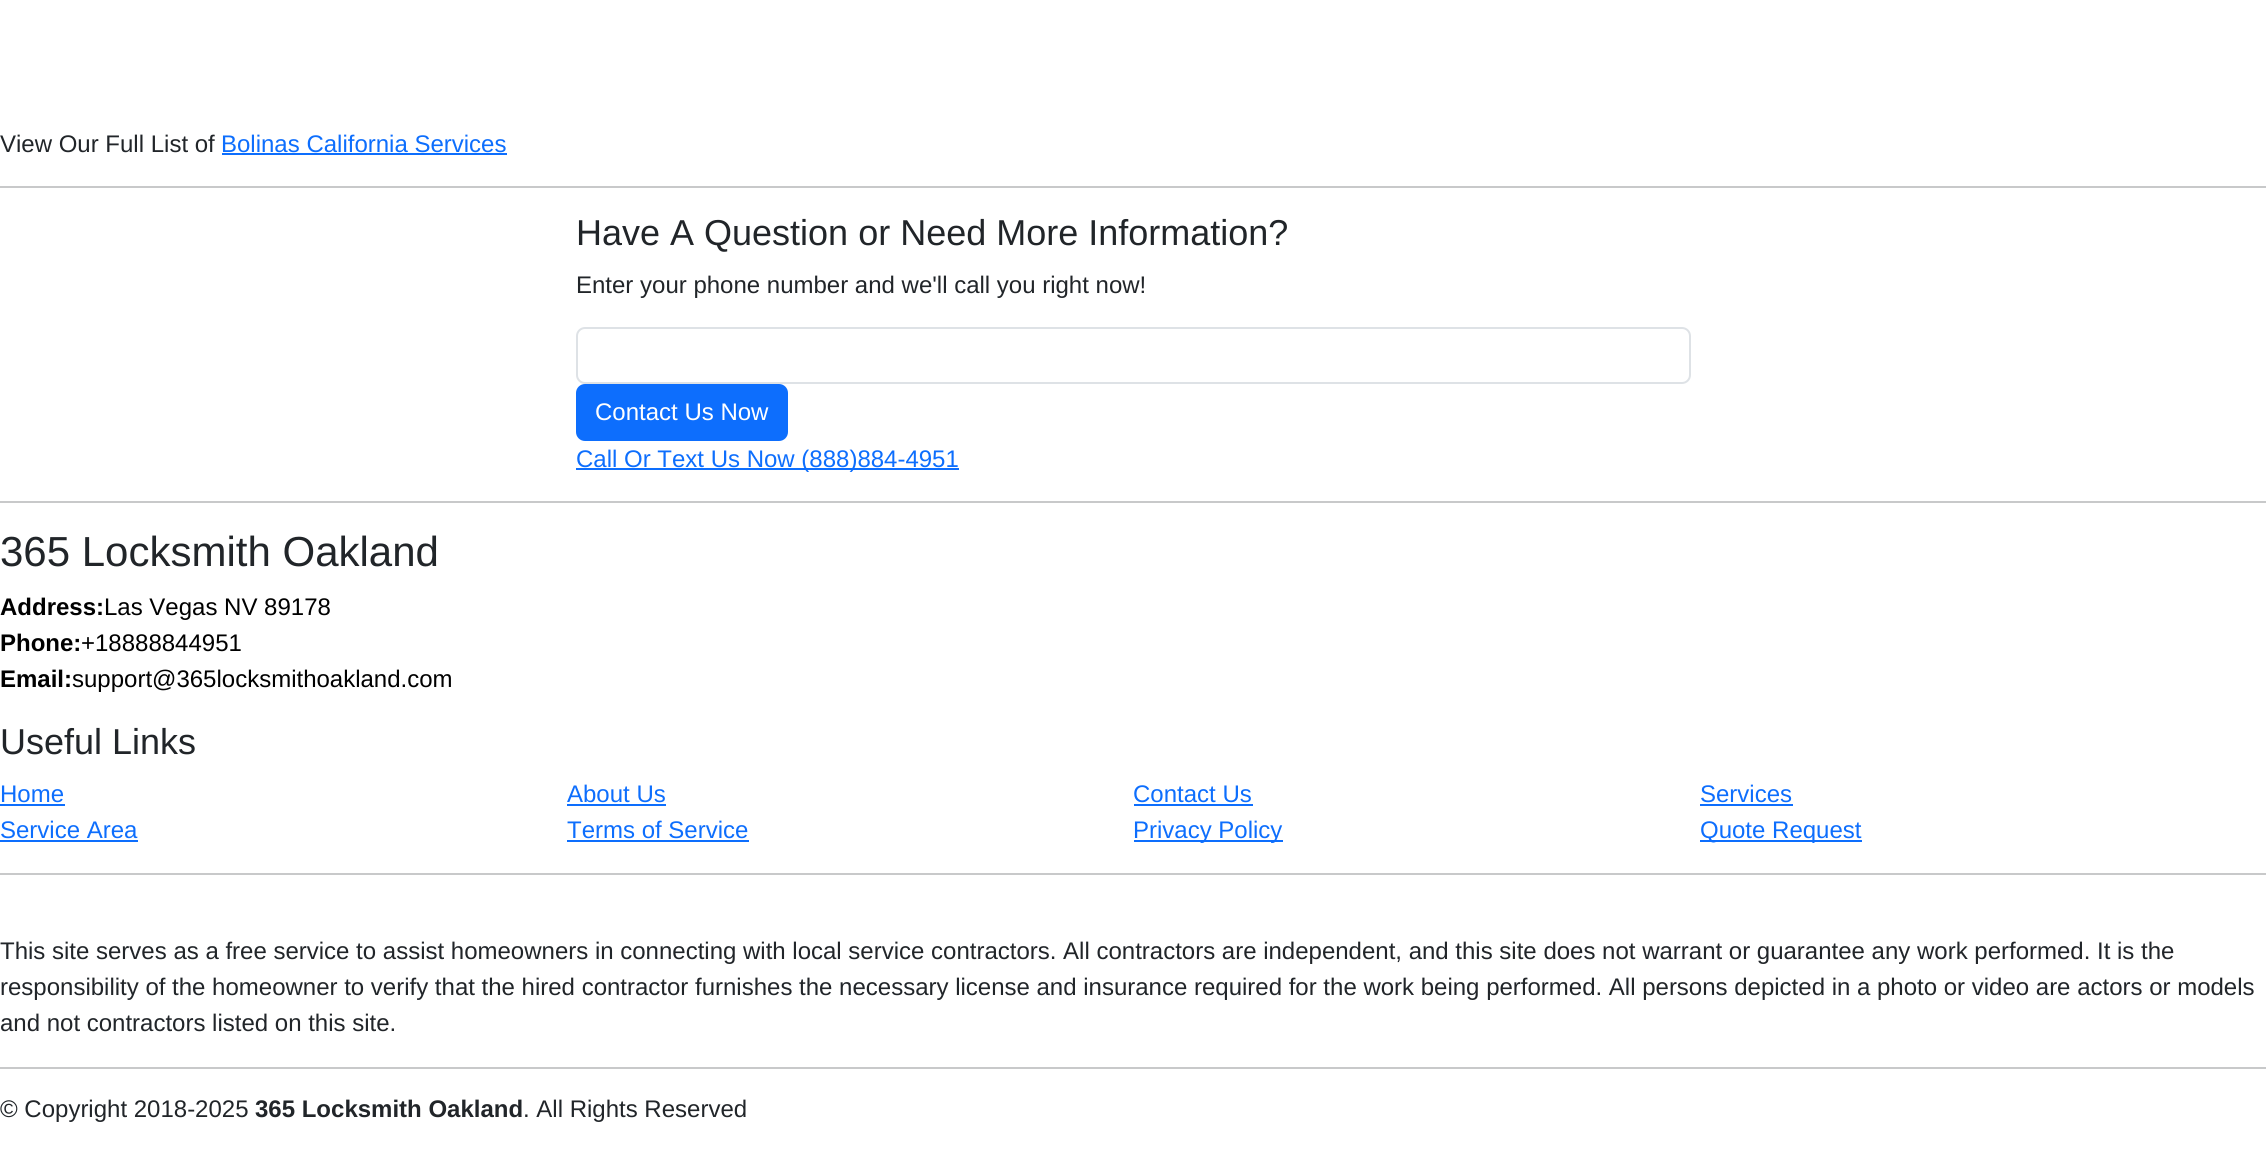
#include <cairo.h>
#include <math.h>
#include <stddef.h>


static void rgb(cairo_t *cr, int r, int g, int b)
{
	cairo_set_source_rgb(cr, r / 255.0, g / 255.0, b / 255.0);
}

static void face(cairo_t *cr, const char *family, double size, int italic, int bold)
{
	cairo_select_font_face(cr, family, italic ? CAIRO_FONT_SLANT_ITALIC : CAIRO_FONT_SLANT_NORMAL,
		bold ? CAIRO_FONT_WEIGHT_BOLD : CAIRO_FONT_WEIGHT_NORMAL);
	cairo_set_font_size(cr, size);
}

static void label(cairo_t *cr, double x, double y, const char *s)
{
	cairo_move_to(cr, x, y);
	cairo_show_text(cr, s);
}

static void rect(cairo_t *cr, double x, double y, double w, double h)
{
	cairo_rectangle(cr, x, y, w, h);
	cairo_fill(cr);
}

static void rrect(cairo_t *cr, double x, double y, double w, double h, double r)
{
	cairo_new_sub_path(cr);
	cairo_arc(cr, x + w - r, y + h - r, r, 0, M_PI / 2);
	cairo_arc(cr, x + r, y + h - r, r, M_PI / 2, M_PI);
	cairo_arc(cr, x + r, y + r, r, M_PI, 1.5 * M_PI);
	cairo_arc(cr, x + w - r, y + r, r, 1.5 * M_PI, 2 * M_PI);
	cairo_close_path(cr);
}

static void draw(cairo_t *cr) {
	rgb(cr, 255, 255, 255);
	cairo_paint(cr);
	face(cr, "Liberation Sans", 24, 0, 0);
	rgb(cr, 33, 37, 41);
	label(cr, 0, 152, "View Our Full List of");
	rgb(cr, 13, 110, 253);
	label(cr, 221, 152, "Bolinas California Services");
	rect(cr, 222, 153, 285, 2);
	rgb(cr, 200, 201, 202);
	rect(cr, 0, 186, 2266, 2);
	face(cr, "Liberation Sans", 36, 0, 0);
	rgb(cr, 33, 37, 41);
	label(cr, 576, 245, "Have A Question or Need More Information?");
	face(cr, "Liberation Sans", 24, 0, 0);
	label(cr, 576, 293, "Enter your phone number and we'll call you right now!");
	rrect(cr, 577, 328, 1113, 55, 8);
	rgb(cr, 222, 226, 230);
	cairo_stroke(cr);
	rgb(cr, 13, 110, 253);
	rrect(cr, 577, 385, 210, 55, 8);
	cairo_fill_preserve(cr);
	cairo_stroke(cr);
	rgb(cr, 255, 255, 255);
	label(cr, 595, 420, "Contact Us Now");
	rgb(cr, 13, 110, 253);
	rect(cr, 576, 468, 383, 2);
	label(cr, 576, 467, "Call Or Text Us Now (888)884-4951");
	rgb(cr, 200, 201, 202);
	rect(cr, 0, 501, 2266, 2);
	face(cr, "Liberation Sans", 42, 0, 0);
	rgb(cr, 33, 37, 41);
	label(cr, 0, 566, "365 Locksmith Oakland");
	face(cr, "Liberation Sans", 24, 0, 1);
	rgb(cr, 0, 0, 0);
	label(cr, 0, 615, "Address:");
	face(cr, "Liberation Sans", 24, 0, 0);
	label(cr, 104, 615, "Las Vegas NV 89178");
	face(cr, "Liberation Sans", 24, 0, 1);
	label(cr, 0, 651, "Phone:");
	face(cr, "Liberation Sans", 24, 0, 0);
	label(cr, 81, 651, "+18888844951");
	face(cr, "Liberation Sans", 24, 0, 1);
	label(cr, 0, 687, "Email:");
	face(cr, "Liberation Sans", 24, 0, 0);
	label(cr, 72, 687, "support@365locksmithoakland.com");
	face(cr, "Liberation Sans", 36, 0, 0);
	rgb(cr, 33, 37, 41);
	label(cr, 0, 754, "Useful Links");
	face(cr, "Liberation Sans", 24, 0, 0);
	rgb(cr, 13, 110, 253);
	label(cr, 0, 802, "Home");
	rect(cr, 0, 804, 65, 2);
	label(cr, 567, 802, "About Us");
	rect(cr, 567, 804, 99, 2);
	label(cr, 1133, 802, "Contact Us");
	rect(cr, 1134, 804, 119, 2);
	label(cr, 1700, 802, "Services");
	rect(cr, 1700, 804, 93, 2);
	label(cr, 0, 838, "Service Area");
	rect(cr, 0, 840, 138, 2);
	label(cr, 567, 838, "Terms of Service");
	rect(cr, 567, 840, 182, 2);
	rect(cr, 1134, 840, 149, 2);
	label(cr, 1133, 838, "Privacy Policy");
	rect(cr, 1700, 840, 162, 2);
	label(cr, 1700, 838, "Quote Request");
	rgb(cr, 200, 201, 202);
	rect(cr, 0, 873, 2266, 2);
	rgb(cr, 33, 37, 41);
	label(cr, 0, 959, "This site serves as a free service to assist homeowners in connecting with local service contractors. All contractors are independent, and this site does not warrant or guarantee any work performed. It is the");
	label(cr, 0, 995, "responsibility of the homeowner to verify that the hired contractor furnishes the necessary license and insurance required for the work being performed. All persons depicted in a photo or video are actors or models");
	label(cr, 0, 1031, "and not contractors listed on this site.");
	rgb(cr, 200, 201, 202);
	rect(cr, 0, 1067, 2266, 2);
	rgb(cr, 33, 37, 41);
	label(cr, 0, 1117, "© Copyright 2018-2025");
	face(cr, "Liberation Sans", 24, 0, 1);
	label(cr, 255, 1117, "365 Locksmith Oakland");
	face(cr, "Liberation Sans", 24, 0, 0);
	label(cr, 523, 1117, ". All Rights Reserved");
}

int main(void) {
	cairo_surface_t *surface = cairo_image_surface_create(CAIRO_FORMAT_RGB24, 2266, 1164);
	cairo_t *cr = cairo_create(surface);
	cairo_font_options_t *options = cairo_font_options_create();
	cairo_font_options_set_hint_metrics(options, CAIRO_HINT_METRICS_OFF);
	cairo_font_options_set_hint_style(options, CAIRO_HINT_STYLE_NONE);
	cairo_set_font_options(cr, options);
	cairo_set_miter_limit(cr, 4);
	draw(cr);
	cairo_surface_write_to_png(surface, "render.png");
	cairo_font_options_destroy(options);
	cairo_destroy(cr);
	cairo_surface_destroy(surface);
	return 0;
}
